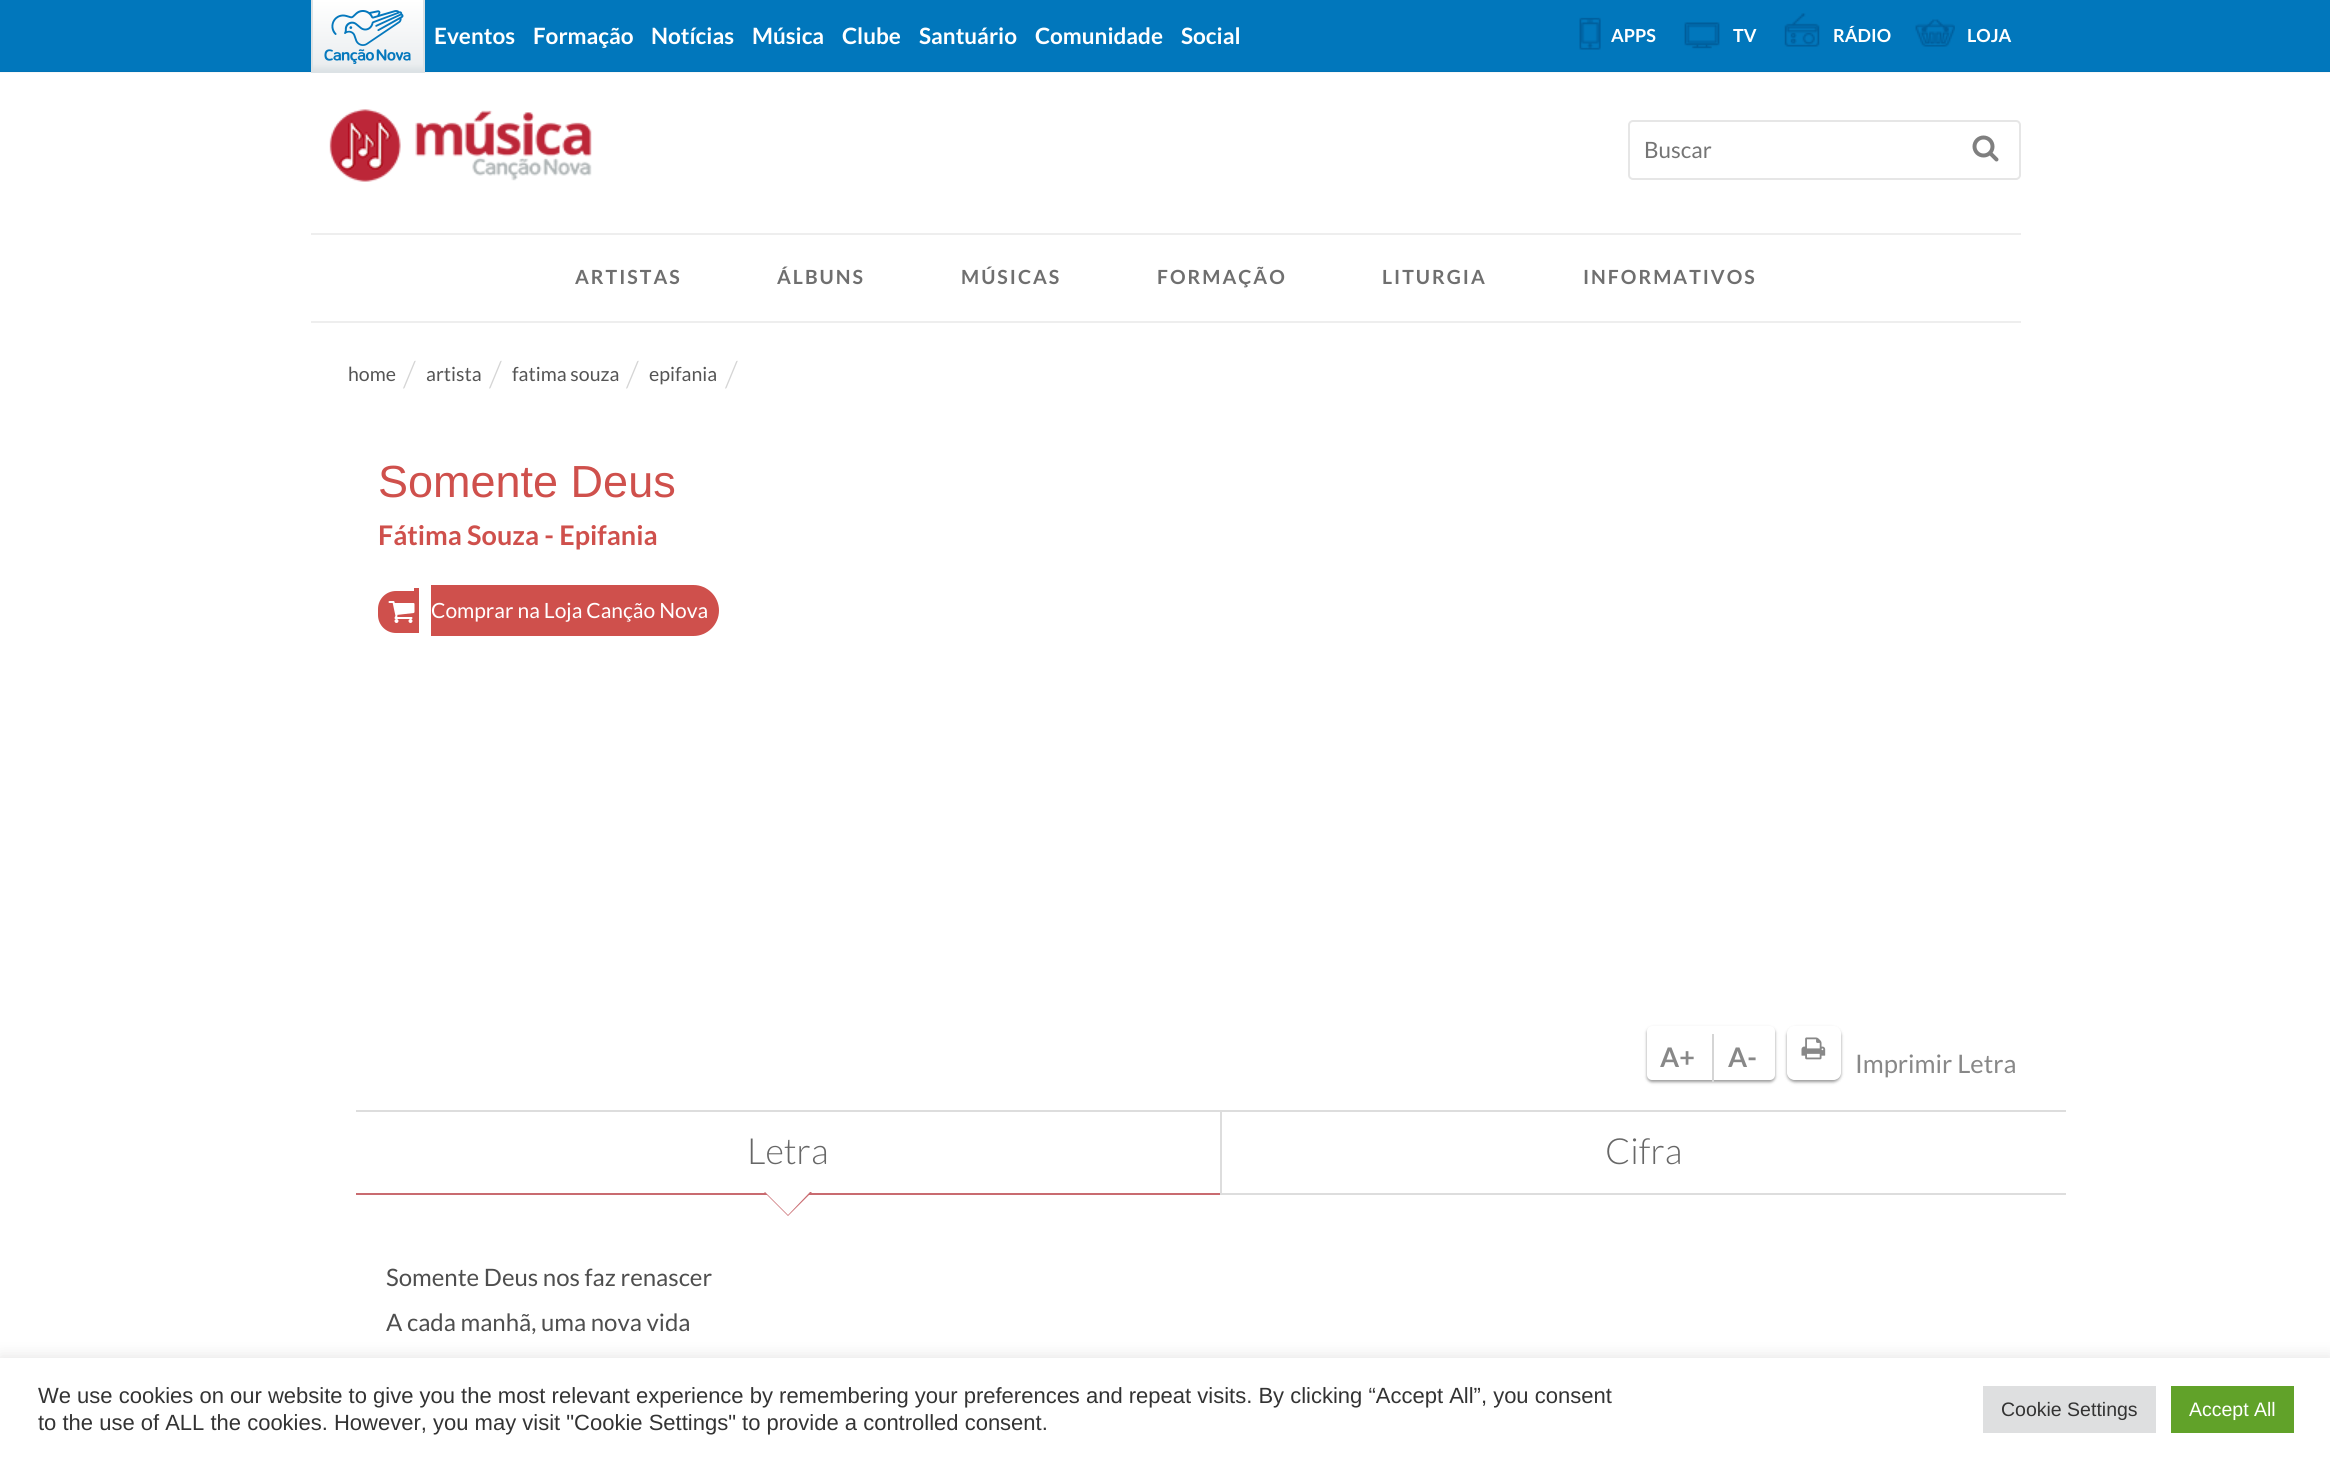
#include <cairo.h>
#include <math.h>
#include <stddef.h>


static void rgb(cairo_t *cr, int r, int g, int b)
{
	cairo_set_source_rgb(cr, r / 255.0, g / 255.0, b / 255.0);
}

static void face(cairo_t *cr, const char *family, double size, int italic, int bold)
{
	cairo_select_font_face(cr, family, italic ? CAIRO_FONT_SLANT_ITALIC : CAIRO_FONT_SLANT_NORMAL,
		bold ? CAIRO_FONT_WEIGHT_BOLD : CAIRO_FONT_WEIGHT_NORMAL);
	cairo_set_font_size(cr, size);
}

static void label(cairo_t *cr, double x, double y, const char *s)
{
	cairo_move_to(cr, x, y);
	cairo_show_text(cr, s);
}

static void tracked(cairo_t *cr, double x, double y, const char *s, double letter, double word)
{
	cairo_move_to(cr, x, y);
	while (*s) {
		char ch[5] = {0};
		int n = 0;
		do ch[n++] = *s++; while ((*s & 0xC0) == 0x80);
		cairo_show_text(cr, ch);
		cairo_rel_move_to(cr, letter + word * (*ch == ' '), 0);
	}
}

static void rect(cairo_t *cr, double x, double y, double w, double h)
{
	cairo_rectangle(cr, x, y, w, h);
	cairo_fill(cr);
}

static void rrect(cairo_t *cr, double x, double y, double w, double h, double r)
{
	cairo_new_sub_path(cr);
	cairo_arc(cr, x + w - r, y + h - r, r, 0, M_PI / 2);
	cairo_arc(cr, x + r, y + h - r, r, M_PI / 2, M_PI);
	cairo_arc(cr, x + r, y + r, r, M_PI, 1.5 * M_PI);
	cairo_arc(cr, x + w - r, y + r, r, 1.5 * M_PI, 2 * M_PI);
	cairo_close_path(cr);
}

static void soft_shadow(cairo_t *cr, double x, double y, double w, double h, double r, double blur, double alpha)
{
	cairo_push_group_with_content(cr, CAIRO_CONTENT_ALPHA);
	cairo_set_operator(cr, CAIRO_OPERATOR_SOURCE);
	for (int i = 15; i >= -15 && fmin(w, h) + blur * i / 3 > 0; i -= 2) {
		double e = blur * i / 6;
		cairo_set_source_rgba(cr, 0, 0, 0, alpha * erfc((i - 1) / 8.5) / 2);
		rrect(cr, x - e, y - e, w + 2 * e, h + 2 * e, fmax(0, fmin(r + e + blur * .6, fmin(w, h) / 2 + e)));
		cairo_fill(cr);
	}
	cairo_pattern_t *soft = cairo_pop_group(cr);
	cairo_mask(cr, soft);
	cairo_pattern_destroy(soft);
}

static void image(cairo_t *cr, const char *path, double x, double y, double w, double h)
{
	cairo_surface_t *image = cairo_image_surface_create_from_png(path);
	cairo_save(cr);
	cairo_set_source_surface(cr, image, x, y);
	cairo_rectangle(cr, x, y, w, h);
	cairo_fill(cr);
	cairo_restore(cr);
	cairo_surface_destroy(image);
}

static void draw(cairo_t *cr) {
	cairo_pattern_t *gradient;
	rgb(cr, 255, 255, 255);
	cairo_paint(cr);
	rgb(cr, 247, 247, 247);
	rect(cr, 0, 72, 2330, 1);
	rgb(cr, 1, 119, 188);
	rect(cr, 0, 0, 2330, 71);
	rgb(cr, 1, 115, 182);
	rect(cr, 0, 71, 2330, 1);
	gradient = cairo_pattern_create_linear(368, 0, 368, 71);
	cairo_pattern_add_color_stop_rgba(gradient, 0, 1, 1, 1, 1);
	cairo_pattern_add_color_stop_rgba(gradient, 0.9, 0.922, 0.933, 0.941, 1);
	cairo_pattern_add_color_stop_rgba(gradient, 1, 0.863, 0.886, 0.898, 1);
	cairo_set_source(cr, gradient);
	cairo_pattern_destroy(gradient);
	rect(cr, 313, 0, 110, 71);
	rgb(cr, 220, 226, 229);
	rect(cr, 423, 0, 2, 72);
	rect(cr, 311, 71, 114, 2);
	rect(cr, 311, 0, 2, 72);
	image(cr, "image0.png", 324, 10, 87, 54);
	face(cr, "Lato", 22.5, 0, 1);
	rgb(cr, 255, 255, 255);
	label(cr, 434, 44, "Eventos");
	label(cr, 533, 44, "Formação");
	label(cr, 651, 44, "Notícias");
	label(cr, 752, 44, "Música");
	label(cr, 842, 44, "Clube");
	label(cr, 919, 44, "Santuário");
	label(cr, 1035, 44, "Comunidade");
	label(cr, 1181, 44, "Social");
	image(cr, "image1.png", 1579, 17, 22, 33);
	face(cr, "Lato", 18, 0, 1);
	label(cr, 1611, 42, "APPS");
	image(cr, "image2.png", 1684, 22, 36, 27);
	label(cr, 1733, 42, "TV");
	image(cr, "image3.png", 1784, 13, 36, 34);
	label(cr, 1833, 42, "RÁDIO");
	image(cr, "image4.png", 1915, 19, 40, 28);
	label(cr, 1967, 42, "LOJA");
	image(cr, "image5.png", 329, 109, 263, 73);
	rrect(cr, 1629, 121, 391, 58, 4);
	rgb(cr, 230, 230, 230);
	cairo_stroke(cr);
	face(cr, "Lato", 22.5, 0, 0);
	rgb(cr, 117, 117, 117);
	label(cr, 1644, 158, "Buscar");
	image(cr, "image6.png", 1972, 135, 27, 27);
	rgb(cr, 238, 238, 238);
	rect(cr, 311, 233, 1710, 2);
	rect(cr, 311, 321, 1710, 2);
	face(cr, "Lato", 19.5, 0, 1);
	rgb(cr, 111, 111, 111);
	tracked(cr, 575, 284, "ARTISTAS", 2, 0);
	tracked(cr, 777, 284, "ÁLBUNS", 2, 0);
	tracked(cr, 961, 284, "MÚSICAS", 2, 0);
	tracked(cr, 1157, 284, "FORMAÇÃO", 2, 0);
	tracked(cr, 1382, 284, "LITURGIA", 2, 0);
	tracked(cr, 1583, 284, "INFORMATIVOS", 2, 0);
	face(cr, "Lato", 19.5, 0, 0);
	rgb(cr, 85, 85, 85);
	label(cr, 348, 381, "home");
	face(cr, "Lato Light", 36, 0, 0);
	rgb(cr, 213, 213, 213);
	label(cr, 403, 387, "/");
	face(cr, "Lato", 19.5, 0, 0);
	rgb(cr, 85, 85, 85);
	label(cr, 426, 381, "artista");
	face(cr, "Lato Light", 36, 0, 0);
	rgb(cr, 213, 213, 213);
	label(cr, 489, 387, "/");
	face(cr, "Lato", 19.5, 0, 0);
	rgb(cr, 85, 85, 85);
	label(cr, 512, 381, "fatima souza");
	face(cr, "Lato Light", 36, 0, 0);
	rgb(cr, 213, 213, 213);
	label(cr, 626, 387, "/");
	face(cr, "Lato", 19.5, 0, 0);
	rgb(cr, 85, 85, 85);
	label(cr, 649, 381, "epifania");
	face(cr, "Lato Light", 36, 0, 0);
	rgb(cr, 213, 213, 213);
	label(cr, 725, 387, "/");
	face(cr, "Liberation Sans", 45, 0, 0);
	rgb(cr, 207, 80, 76);
	label(cr, 378, 497, "Somente Deus");
	face(cr, "Lato", 27, 0, 1);
	label(cr, 378, 545, "Fátima Souza - Epifania");
	cairo_new_path(cr);
	cairo_move_to(cr, 396, 591);
	cairo_line_to(cr, 414, 591);
	cairo_line_to(cr, 414, 633);
	cairo_line_to(cr, 396, 633);
	cairo_curve_to(cr, 386, 633, 378, 625, 378, 615);
	cairo_line_to(cr, 378, 609);
	cairo_curve_to(cr, 378, 599, 386, 591, 396, 591);
	cairo_close_path(cr);
	cairo_fill(cr);
	rect(cr, 414, 588, 5, 45);
	cairo_new_path(cr);
	cairo_move_to(cr, 431, 585);
	cairo_line_to(cr, 693.5, 585);
	cairo_curve_to(cr, 707.5, 585, 719, 596.5, 719, 610.5);
	cairo_curve_to(cr, 719, 624.5, 707.5, 636, 693.5, 636);
	cairo_line_to(cr, 431, 636);
	cairo_close_path(cr);
	cairo_fill(cr);
	image(cr, "image7.png", 388, 601, 27, 22);
	face(cr, "Lato", 21, 0, 0);
	rgb(cr, 255, 255, 255);
	label(cr, 431, 618, "Comprar na Loja Canção Nova");
	rgb(cr, 0, 0, 0);
	soft_shadow(cr, 1647, 1028, 128, 54, 5, 1.5, 0.4);
	rgb(cr, 255, 255, 255);
	rrect(cr, 1647, 1026, 128, 54, 5);
	cairo_fill(cr);
	face(cr, "Lato", 27, 0, 1);
	rgb(cr, 136, 136, 136);
	label(cr, 1660, 1067, "A+");
	rgb(cr, 213, 213, 213);
	rect(cr, 1712, 1034, 2, 48);
	rgb(cr, 136, 136, 136);
	label(cr, 1728, 1067, "A-");
	cairo_save(cr);
	cairo_set_fill_rule(cr, CAIRO_FILL_RULE_EVEN_ODD);
	cairo_new_path(cr);
	cairo_move_to(cr, 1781, 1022);
	cairo_line_to(cr, 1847, 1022);
	cairo_line_to(cr, 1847, 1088);
	cairo_line_to(cr, 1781, 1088);
	cairo_close_path(cr);
	cairo_move_to(cr, 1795, 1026);
	cairo_line_to(cr, 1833, 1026);
	cairo_curve_to(cr, 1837.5, 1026, 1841, 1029.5, 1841, 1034);
	cairo_line_to(cr, 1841, 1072);
	cairo_curve_to(cr, 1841, 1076.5, 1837.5, 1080, 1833, 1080);
	cairo_line_to(cr, 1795, 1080);
	cairo_curve_to(cr, 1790.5, 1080, 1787, 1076.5, 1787, 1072);
	cairo_line_to(cr, 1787, 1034);
	cairo_curve_to(cr, 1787, 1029.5, 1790.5, 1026, 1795, 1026);
	cairo_close_path(cr);
	cairo_clip(cr);
	rgb(cr, 0, 0, 0);
	soft_shadow(cr, 1787, 1028, 54, 54, 8, 1.5, 0.4);
	cairo_restore(cr);
	image(cr, "image8.png", 1801, 1037, 25, 23);
	face(cr, "Lato", 25.5, 0, 0);
	label(cr, 1855, 1073, "Imprimir Letra");
	rgb(cr, 221, 221, 221);
	rect(cr, 356, 1110, 1710, 2);
	rgb(cr, 201, 107, 112);
	rect(cr, 356, 1193, 864, 2);
	face(cr, "Lato Light", 36, 0, 0);
	rgb(cr, 103, 103, 103);
	label(cr, 747, 1164, "Letra");
	rgb(cr, 201, 107, 112);
	cairo_new_path(cr);
	cairo_move_to(cr, 764, 1192);
	cairo_line_to(cr, 812, 1192);
	cairo_line_to(cr, 788, 1216);
	cairo_close_path(cr);
	cairo_fill(cr);
	rgb(cr, 255, 255, 255);
	cairo_new_path(cr);
	cairo_move_to(cr, 765, 1192);
	cairo_line_to(cr, 810, 1192);
	cairo_line_to(cr, 788, 1215);
	cairo_close_path(cr);
	cairo_fill(cr);
	rgb(cr, 221, 221, 221);
	rect(cr, 1220, 1193, 846, 2);
	rect(cr, 1220, 1110, 2, 84);
	rgb(cr, 103, 103, 103);
	label(cr, 1605, 1164, "Cifra");
	face(cr, "Lato", 24, 0, 0);
	rgb(cr, 78, 78, 78);
	label(cr, 386, 1286, "Somente Deus nos faz renascer");
	label(cr, 386, 1331, "A cada manhã, uma nova vida");
	rgb(cr, 172, 171, 171);
	soft_shadow(cr, 0, 1356, 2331, 104, 0, 7.5, 0.3);
	rgb(cr, 255, 255, 255);
	rect(cr, 0, 1358, 2330, 102);
	face(cr, "Liberation Sans", 22, 0, 0);
	rgb(cr, 51, 51, 51);
	label(cr, 38, 1403, "We use cookies on our website to give you the most relevant experience by remembering your preferences and repeat visits. By clicking “Accept All”, you consent");
	label(cr, 38, 1430, "to the use of ALL the cookies. However, you may visit \"Cookie Settings\" to provide a controlled consent.");
	rgb(cr, 222, 223, 224);
	rect(cr, 1983, 1386, 173, 47);
	face(cr, "Liberation Sans", 19.5, 0, 0);
	rgb(cr, 51, 51, 51);
	label(cr, 2001, 1416, "Cookie Settings");
	rgb(cr, 97, 162, 41);
	rect(cr, 2171, 1386, 123, 47);
	rgb(cr, 255, 255, 255);
	label(cr, 2189, 1416, "Accept All");
}

int main(void) {
	cairo_surface_t *surface = cairo_image_surface_create(CAIRO_FORMAT_RGB24, 2330, 1460);
	cairo_t *cr = cairo_create(surface);
	cairo_font_options_t *options = cairo_font_options_create();
	cairo_font_options_set_hint_metrics(options, CAIRO_HINT_METRICS_OFF);
	cairo_font_options_set_hint_style(options, CAIRO_HINT_STYLE_NONE);
	cairo_set_font_options(cr, options);
	cairo_set_miter_limit(cr, 4);
	draw(cr);
	cairo_surface_write_to_png(surface, "render.png");
	cairo_font_options_destroy(options);
	cairo_destroy(cr);
	cairo_surface_destroy(surface);
	return 0;
}
